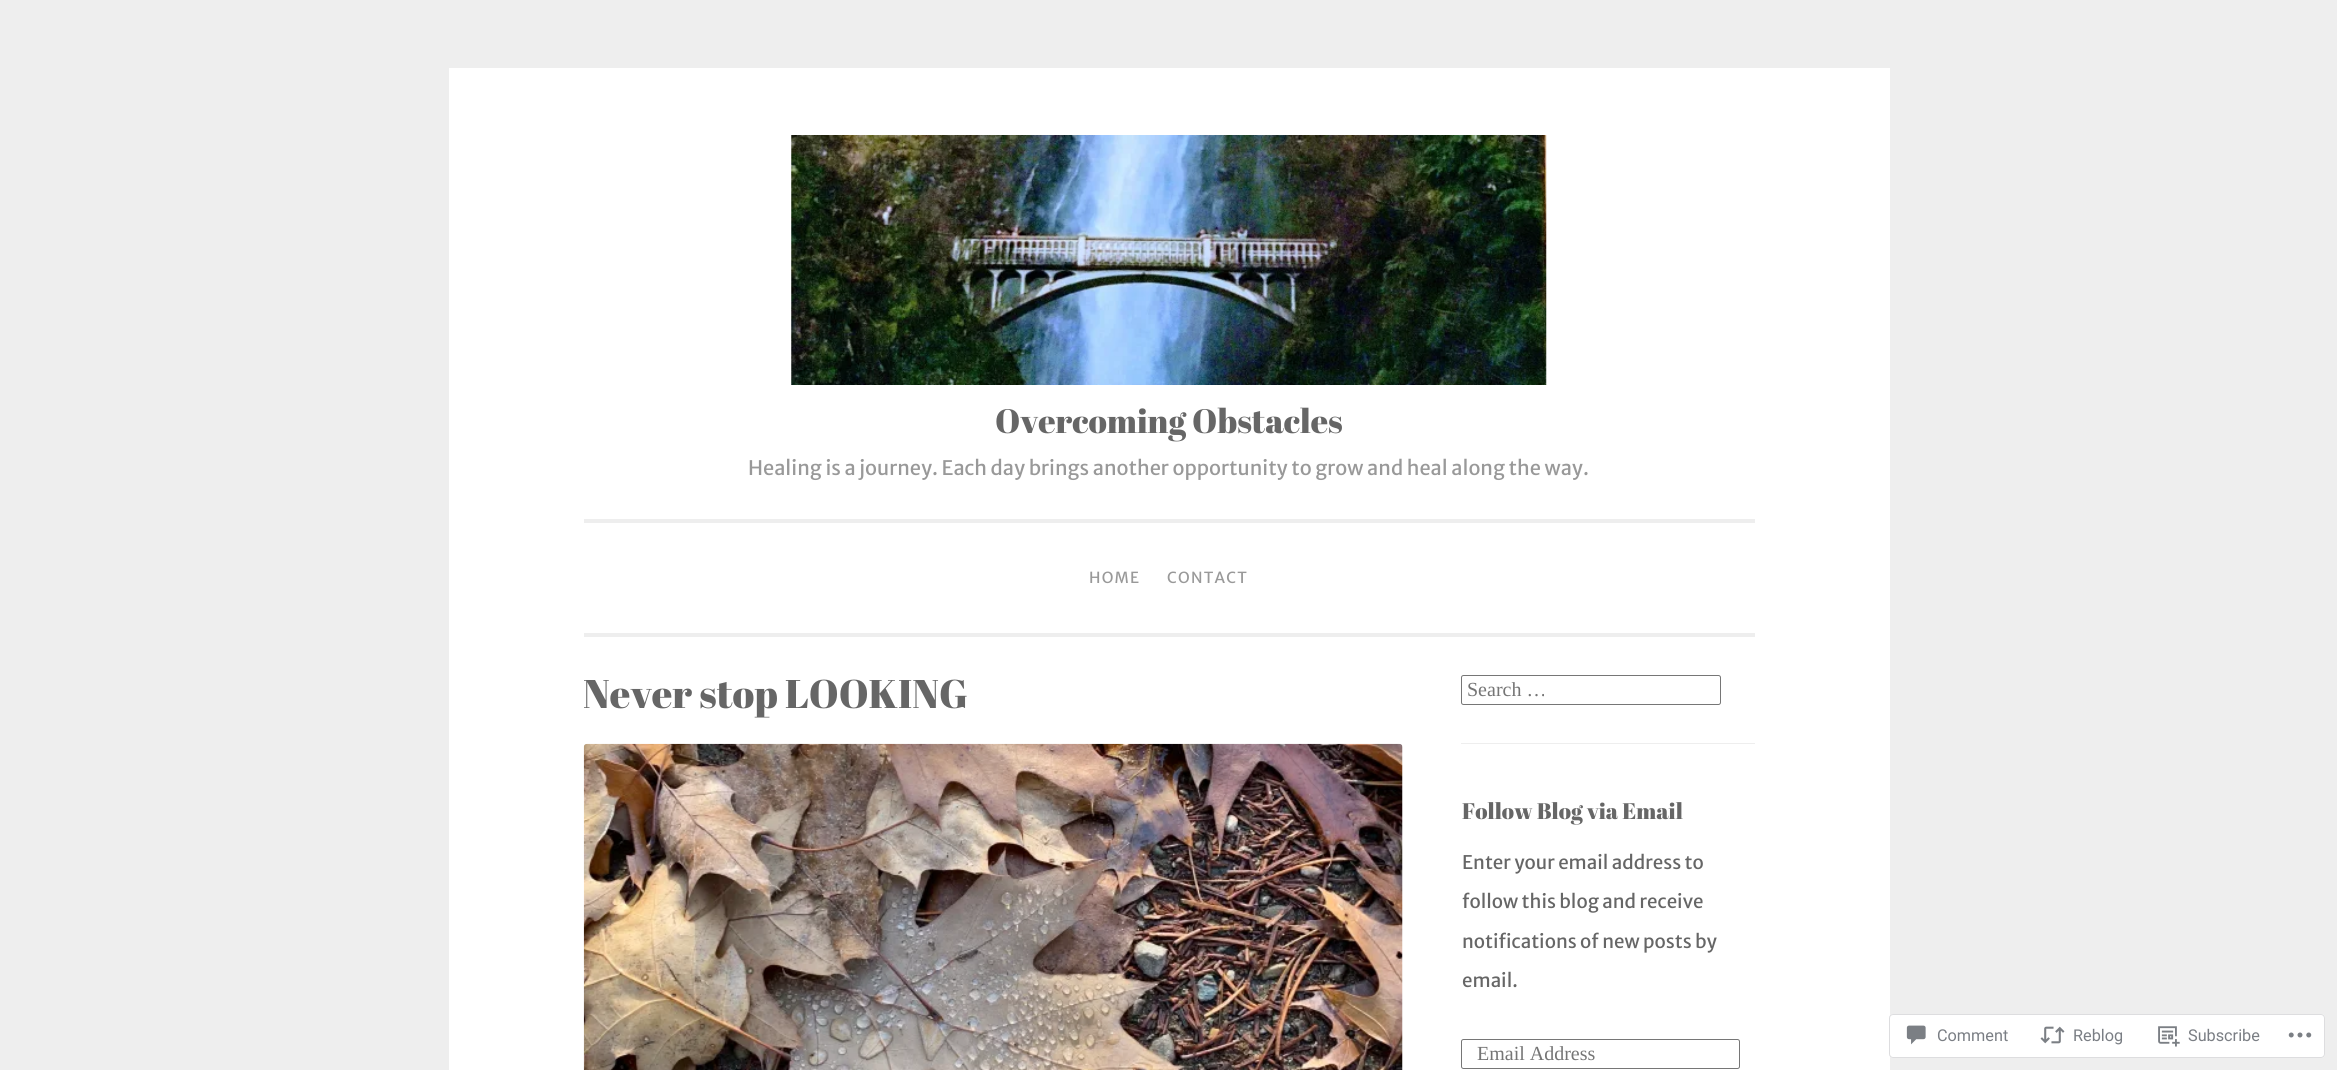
#include <cairo.h>
#include <math.h>
#include <stddef.h>


static void rgb(cairo_t *cr, int r, int g, int b)
{
	cairo_set_source_rgb(cr, r / 255.0, g / 255.0, b / 255.0);
}

static void face(cairo_t *cr, const char *family, double size, int italic, int bold)
{
	cairo_select_font_face(cr, family, italic ? CAIRO_FONT_SLANT_ITALIC : CAIRO_FONT_SLANT_NORMAL,
		bold ? CAIRO_FONT_WEIGHT_BOLD : CAIRO_FONT_WEIGHT_NORMAL);
	cairo_set_font_size(cr, size);
}

static void label(cairo_t *cr, double x, double y, const char *s)
{
	cairo_move_to(cr, x, y);
	cairo_show_text(cr, s);
}

static void tracked(cairo_t *cr, double x, double y, const char *s, double letter, double word)
{
	cairo_move_to(cr, x, y);
	while (*s) {
		char ch[5] = {0};
		int n = 0;
		do ch[n++] = *s++; while ((*s & 0xC0) == 0x80);
		cairo_show_text(cr, ch);
		cairo_rel_move_to(cr, letter + word * (*ch == ' '), 0);
	}
}

static void rect(cairo_t *cr, double x, double y, double w, double h)
{
	cairo_rectangle(cr, x, y, w, h);
	cairo_fill(cr);
}

static void rrect(cairo_t *cr, double x, double y, double w, double h, double r)
{
	cairo_new_sub_path(cr);
	cairo_arc(cr, x + w - r, y + h - r, r, 0, M_PI / 2);
	cairo_arc(cr, x + r, y + h - r, r, M_PI / 2, M_PI);
	cairo_arc(cr, x + r, y + r, r, M_PI, 1.5 * M_PI);
	cairo_arc(cr, x + w - r, y + r, r, 1.5 * M_PI, 2 * M_PI);
	cairo_close_path(cr);
}

static void image(cairo_t *cr, const char *path, double x, double y, double w, double h)
{
	cairo_surface_t *image = cairo_image_surface_create_from_png(path);
	cairo_save(cr);
	cairo_set_source_surface(cr, image, x, y);
	cairo_rectangle(cr, x, y, w, h);
	cairo_fill(cr);
	cairo_restore(cr);
	cairo_surface_destroy(image);
}

static void draw(cairo_t *cr) {
	rgb(cr, 238, 238, 238);
	cairo_paint(cr);
	rgb(cr, 255, 255, 255);
	rect(cr, 449, 68, 1441, 1002);
	rgb(cr, 238, 238, 238);
	rect(cr, 584, 633, 1171, 4);
	image(cr, "image0.png", 791, 135, 756, 250);
	face(cr, "Abril Fatface", 33.75, 0, 0);
	rgb(cr, 102, 102, 102);
	label(cr, 995, 433, "Overcoming Obstacles");
	face(cr, "Merriweather Sans", 20, 0, 0);
	rgb(cr, 153, 153, 153);
	label(cr, 748, 475, "Healing is a journey. Each day brings another opportunity to grow and heal along the way.");
	rgb(cr, 238, 238, 238);
	rect(cr, 584, 519, 1171, 4);
	face(cr, "Merriweather Sans", 15.25, 0, 0);
	rgb(cr, 153, 153, 153);
	tracked(cr, 1089, 583, "HOME", 1.25, 0);
	tracked(cr, 1167, 583, "CONTACT", 1.25, 0);
	face(cr, "Abril Fatface", 40, 0, 0);
	rgb(cr, 102, 102, 102);
	label(cr, 583, 708, "Never stop LOOKING");
	image(cr, "image1.png", 583, 743, 820, 327);
	rgb(cr, 238, 238, 238);
	rect(cr, 1461, 743, 294, 1);
	rrect(cr, 1461.5, 675.5, 259, 29, 2);
	rgb(cr, 118, 118, 118);
	cairo_set_line_width(cr, 1);
	cairo_stroke(cr);
	face(cr, "Liberation Serif", 20, 0, 0);
	rgb(cr, 117, 117, 117);
	label(cr, 1467, 696, "Search …");
	face(cr, "Abril Fatface", 22.5, 0, 0);
	rgb(cr, 102, 102, 102);
	label(cr, 1462, 819, "Follow Blog via Email");
	face(cr, "Merriweather Sans", 18.75, 0, 0);
	label(cr, 1462, 869, "Enter your email address to");
	label(cr, 1462, 908, "follow this blog and receive");
	label(cr, 1462, 948, "notifications of new posts by");
	label(cr, 1462, 987, "email.");
	rrect(cr, 1461.5, 1039.5, 278, 29, 2);
	rgb(cr, 118, 118, 118);
	cairo_stroke(cr);
	face(cr, "Liberation Serif", 20, 0, 0);
	rgb(cr, 117, 117, 117);
	label(cr, 1477, 1060, "Email Address");
	cairo_set_source_rgba(cr, 1, 1, 1, 0.98);
	rrect(cr, 1889, 1014, 436, 44, 4);
	cairo_fill(cr);
	rrect(cr, 1889.5, 1014.5, 435, 43, 3.5);
	cairo_set_source_rgba(cr, 0.863, 0.863, 0.871, 0.98);
	cairo_stroke(cr);
	image(cr, "image2.png", 1906, 1025, 20, 20);
	face(cr, "Roboto", 16.25, 0, 0);
	rgb(cr, 122, 126, 132);
	label(cr, 1937, 1041, "Comment");
	image(cr, "image3.png", 2040, 1026, 25, 18);
	label(cr, 2073, 1041, "Reblog");
	image(cr, "image4.png", 2158, 1026, 22, 21);
	label(cr, 2188, 1041, "Subscribe");
	image(cr, "image5.png", 2288, 1032, 24, 6);
}

int main(void) {
	cairo_surface_t *surface = cairo_image_surface_create(CAIRO_FORMAT_RGB24, 2337, 1070);
	cairo_t *cr = cairo_create(surface);
	cairo_font_options_t *options = cairo_font_options_create();
	cairo_font_options_set_hint_metrics(options, CAIRO_HINT_METRICS_OFF);
	cairo_font_options_set_hint_style(options, CAIRO_HINT_STYLE_NONE);
	cairo_set_font_options(cr, options);
	cairo_set_miter_limit(cr, 4);
	draw(cr);
	cairo_surface_write_to_png(surface, "render.png");
	cairo_font_options_destroy(options);
	cairo_destroy(cr);
	cairo_surface_destroy(surface);
	return 0;
}
